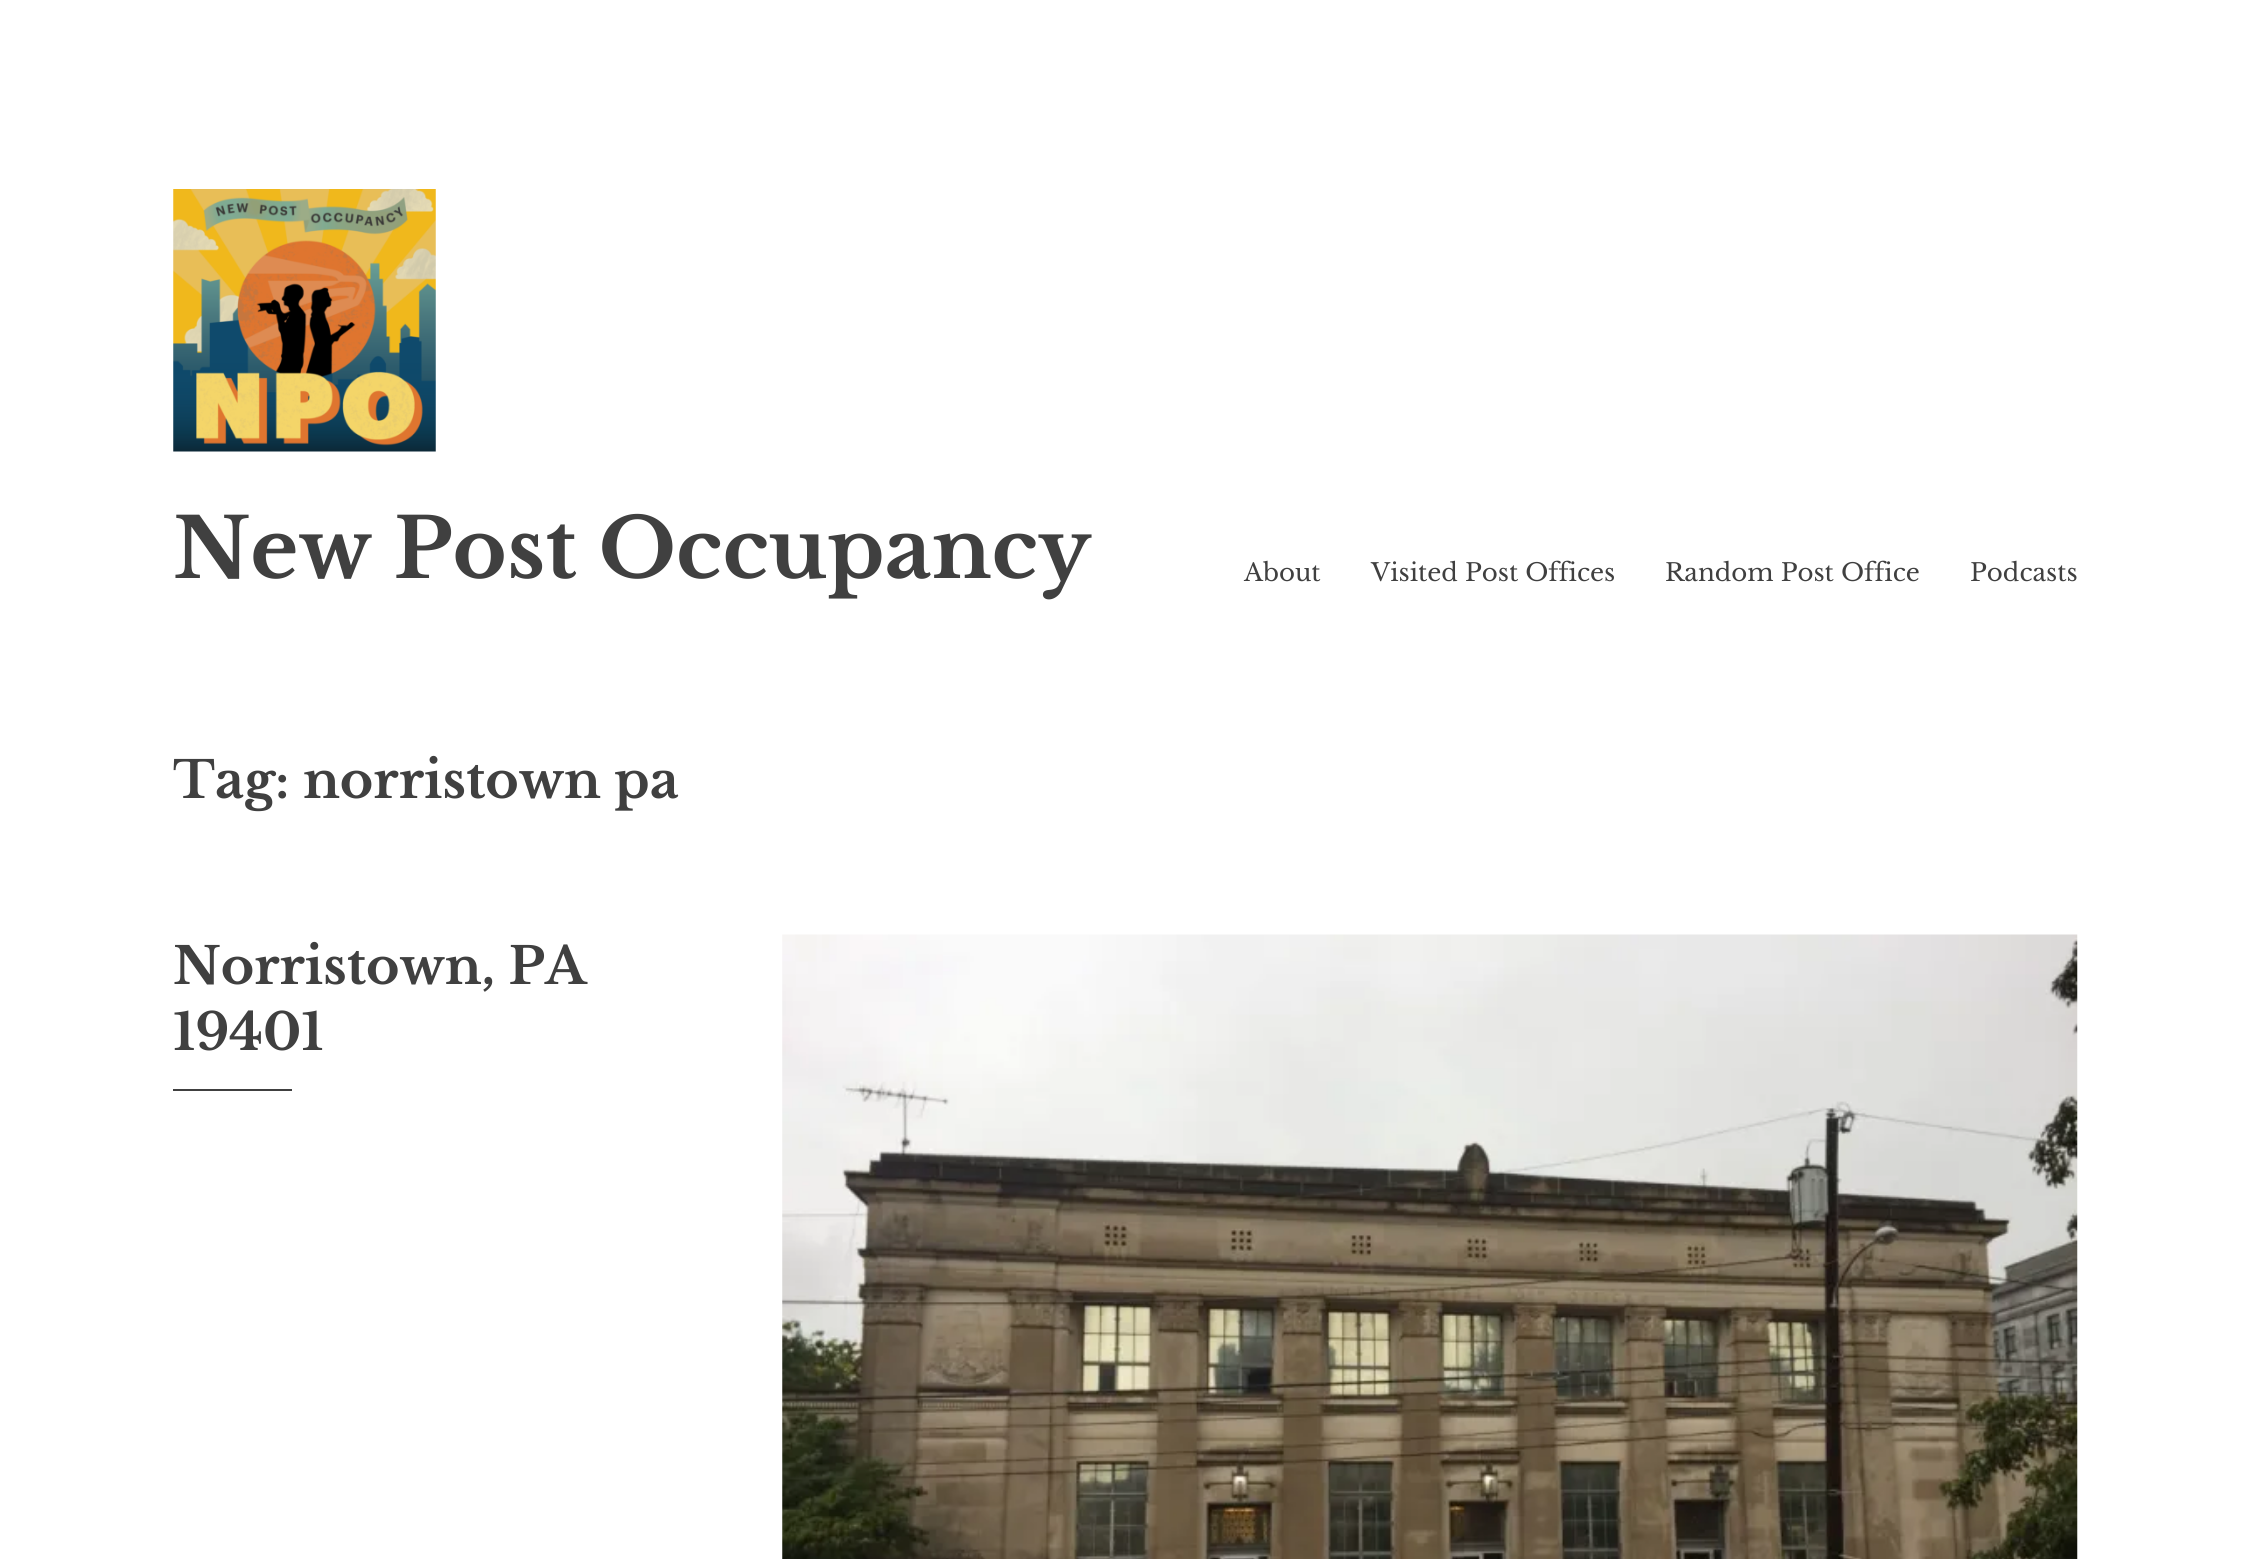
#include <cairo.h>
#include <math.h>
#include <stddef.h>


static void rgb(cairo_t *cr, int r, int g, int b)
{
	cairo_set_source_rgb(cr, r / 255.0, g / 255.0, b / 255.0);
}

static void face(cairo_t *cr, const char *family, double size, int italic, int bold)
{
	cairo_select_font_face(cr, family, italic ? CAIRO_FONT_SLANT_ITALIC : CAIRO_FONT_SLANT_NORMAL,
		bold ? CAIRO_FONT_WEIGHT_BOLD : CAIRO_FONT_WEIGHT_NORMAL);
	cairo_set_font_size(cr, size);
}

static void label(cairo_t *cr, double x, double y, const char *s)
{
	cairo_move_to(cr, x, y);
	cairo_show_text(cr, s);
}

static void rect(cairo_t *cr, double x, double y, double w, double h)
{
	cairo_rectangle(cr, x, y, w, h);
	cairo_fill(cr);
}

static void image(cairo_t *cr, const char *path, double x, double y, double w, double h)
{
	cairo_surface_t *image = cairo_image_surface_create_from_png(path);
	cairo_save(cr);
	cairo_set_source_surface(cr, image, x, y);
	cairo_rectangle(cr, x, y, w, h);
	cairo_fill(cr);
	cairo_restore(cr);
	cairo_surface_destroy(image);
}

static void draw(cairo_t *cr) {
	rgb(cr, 255, 255, 255);
	cairo_paint(cr);
	image(cr, "image0.png", 173, 189, 263, 263);
	face(cr, "Libre Baskerville", 82.25, 0, 1);
	rgb(cr, 64, 64, 64);
	label(cr, 173, 578, "New Post Occupancy");
	face(cr, "Libre Baskerville", 24.5, 0, 0);
	label(cr, 1244, 581, "About");
	label(cr, 1371, 581, "Visited Post Offices");
	label(cr, 1665, 581, "Random Post Office");
	label(cr, 1970, 581, "Podcasts");
	face(cr, "Libre Baskerville", 50.75, 0, 1);
	label(cr, 173, 798, "Tag: norristown pa");
	label(cr, 173, 984, "Norristown, PA");
	label(cr, 173, 1050, "19401");
	rect(cr, 173, 1089, 119, 2);
	image(cr, "image1.png", 782, 934, 1296, 625);
}

int main(void) {
	cairo_surface_t *surface = cairo_image_surface_create(CAIRO_FORMAT_RGB24, 2250, 1559);
	cairo_t *cr = cairo_create(surface);
	cairo_font_options_t *options = cairo_font_options_create();
	cairo_font_options_set_hint_metrics(options, CAIRO_HINT_METRICS_OFF);
	cairo_font_options_set_hint_style(options, CAIRO_HINT_STYLE_NONE);
	cairo_set_font_options(cr, options);
	cairo_set_miter_limit(cr, 4);
	draw(cr);
	cairo_surface_write_to_png(surface, "render.png");
	cairo_font_options_destroy(options);
	cairo_destroy(cr);
	cairo_surface_destroy(surface);
	return 0;
}
